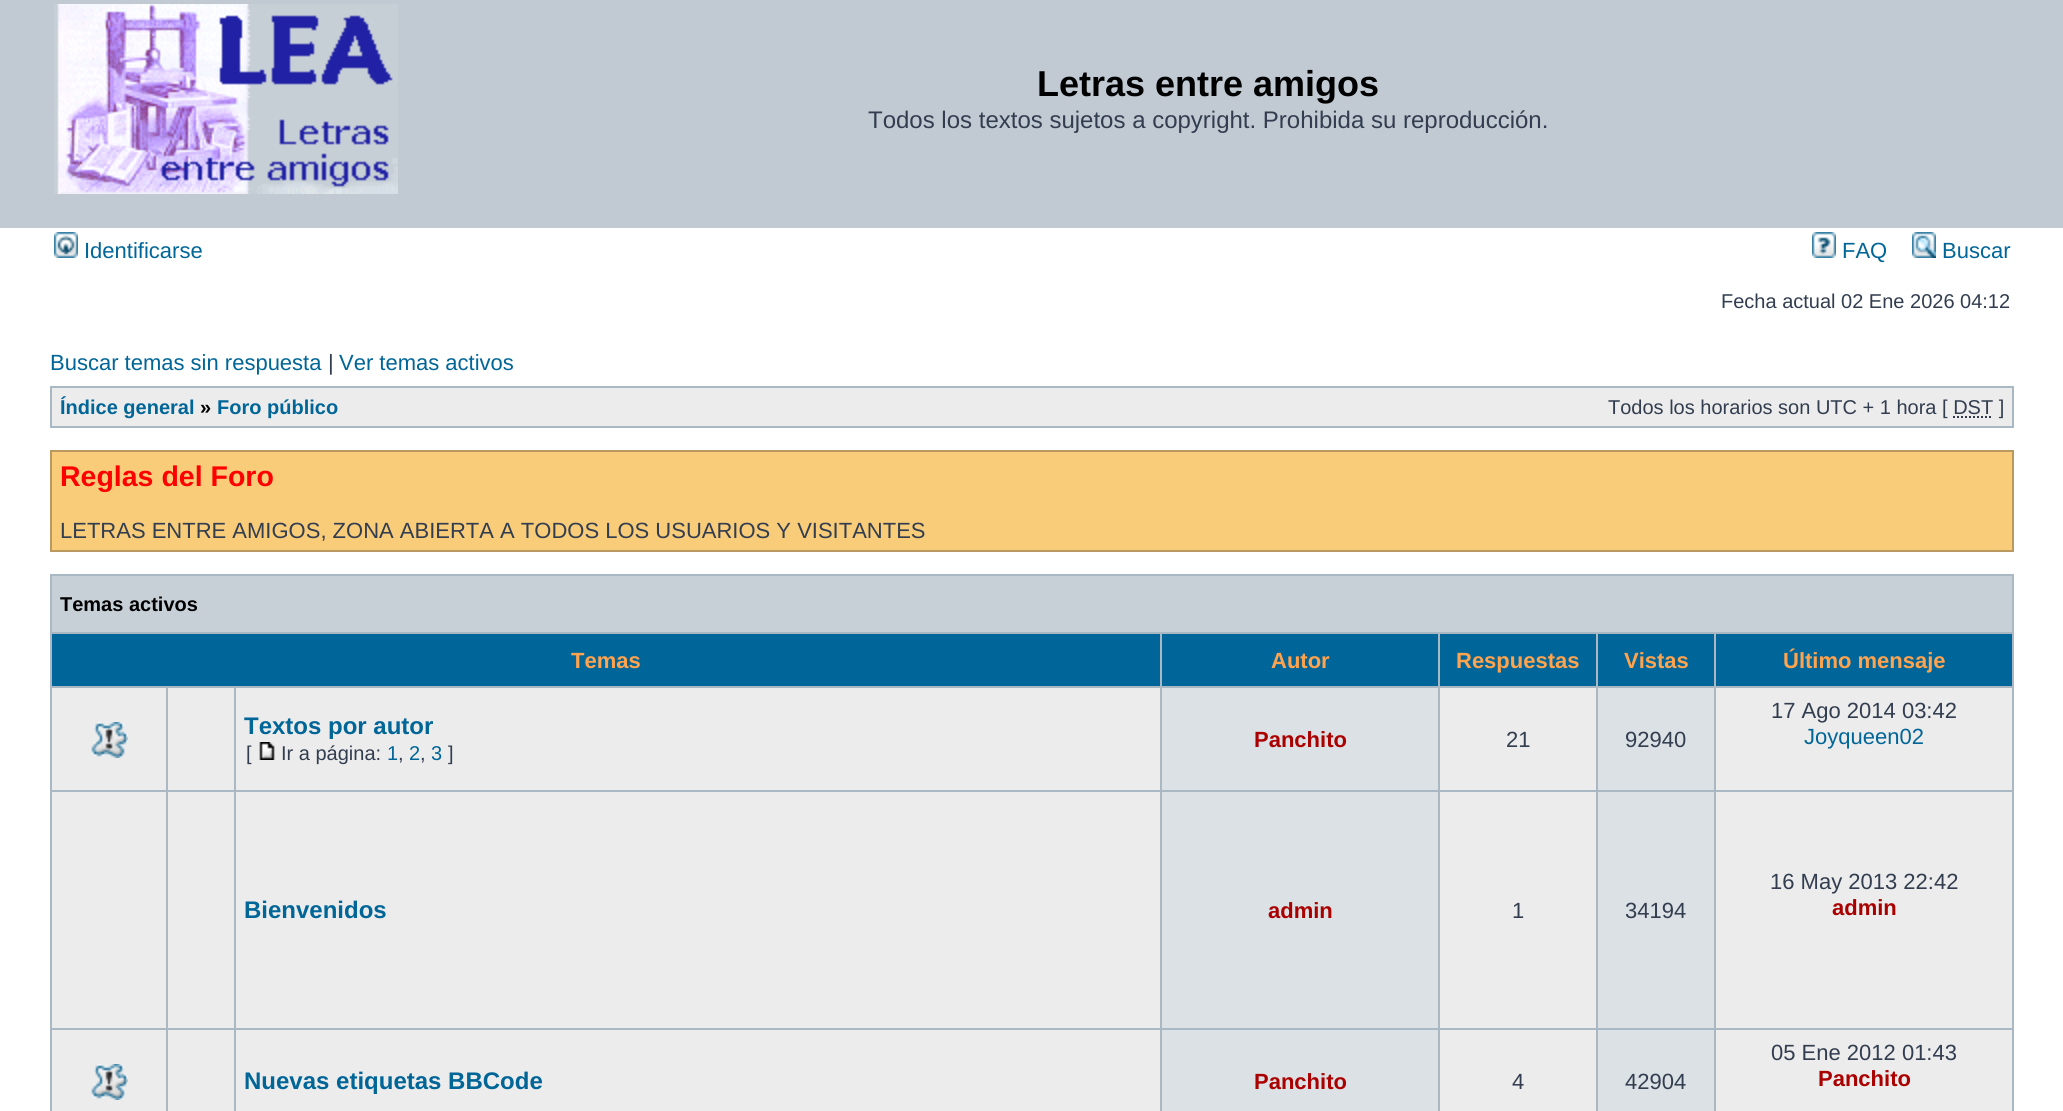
#include <cairo.h>
#include <math.h>
#include <stddef.h>


static void rgb(cairo_t *cr, int r, int g, int b)
{
	cairo_set_source_rgb(cr, r / 255.0, g / 255.0, b / 255.0);
}

static void face(cairo_t *cr, const char *family, double size, int italic, int bold)
{
	cairo_select_font_face(cr, family, italic ? CAIRO_FONT_SLANT_ITALIC : CAIRO_FONT_SLANT_NORMAL,
		bold ? CAIRO_FONT_WEIGHT_BOLD : CAIRO_FONT_WEIGHT_NORMAL);
	cairo_set_font_size(cr, size);
}

static void label(cairo_t *cr, double x, double y, const char *s)
{
	cairo_move_to(cr, x, y);
	cairo_show_text(cr, s);
}

static void rect(cairo_t *cr, double x, double y, double w, double h)
{
	cairo_rectangle(cr, x, y, w, h);
	cairo_fill(cr);
}

static void image(cairo_t *cr, const char *path, double x, double y, double w, double h)
{
	cairo_surface_t *image = cairo_image_surface_create_from_png(path);
	cairo_save(cr);
	cairo_set_source_surface(cr, image, x, y);
	cairo_rectangle(cr, x, y, w, h);
	cairo_fill(cr);
	cairo_restore(cr);
	cairo_surface_destroy(image);
}

static void draw(cairo_t *cr) {
	rgb(cr, 255, 255, 255);
	cairo_paint(cr);
	rgb(cr, 193, 202, 210);
	rect(cr, 0, 0, 2063, 228);
	image(cr, "image0.png", 54, 4, 344, 190);
	face(cr, "Liberation Sans", 36, 0, 1);
	rgb(cr, 0, 0, 0);
	label(cr, 1037, 96, "Letras entre amigos");
	face(cr, "Liberation Sans", 24, 0, 0);
	rgb(cr, 50, 61, 79);
	label(cr, 868, 128, "Todos los textos sujetos a copyright. Prohibida su reproducción.");
	image(cr, "image1.png", 54, 232, 24, 26);
	face(cr, "Liberation Sans", 22, 0, 0);
	rgb(cr, 0, 101, 151);
	label(cr, 84, 258, "Identificarse");
	image(cr, "image2.png", 1812, 232, 24, 26);
	label(cr, 1842, 258, "FAQ");
	image(cr, "image3.png", 1912, 232, 24, 26);
	label(cr, 1942, 258, "Buscar");
	face(cr, "Liberation Sans", 20, 0, 0);
	rgb(cr, 50, 61, 79);
	label(cr, 1721, 308, "Fecha actual 02 Ene 2026 04:12");
	face(cr, "Liberation Sans", 22, 0, 0);
	rgb(cr, 0, 101, 151);
	label(cr, 50, 370, "Buscar temas sin respuesta");
	rgb(cr, 50, 61, 79);
	label(cr, 328, 370, "|");
	rgb(cr, 0, 101, 151);
	label(cr, 339, 370, "Ver temas activos");
	rgb(cr, 169, 184, 194);
	rect(cr, 50, 386, 1964, 42);
	rgb(cr, 236, 236, 236);
	rect(cr, 52, 388, 1960, 38);
	face(cr, "Liberation Sans", 20, 0, 1);
	rgb(cr, 0, 101, 151);
	label(cr, 60, 414, "Índice general");
	rgb(cr, 0, 0, 0);
	label(cr, 200, 414, "»");
	rgb(cr, 0, 101, 151);
	label(cr, 217, 414, "Foro público");
	face(cr, "Liberation Sans", 20, 0, 0);
	rgb(cr, 50, 61, 79);
	label(cr, 1608, 414, "Todos los horarios son UTC + 1 hora [ DST ]");
	cairo_new_path(cr);
	cairo_move_to(cr, 1953, 417);
	cairo_line_to(cr, 1993, 417);
	cairo_set_dash(cr, (double[]){2, 2}, 2, 0);
	cairo_stroke(cr);
	rgb(cr, 249, 204, 121);
	cairo_rectangle(cr, 51, 451, 1962, 100);
	cairo_fill_preserve(cr);
	rgb(cr, 187, 152, 96);
	cairo_set_dash(cr, NULL, 0, 0);
	cairo_stroke(cr);
	face(cr, "Liberation Sans", 28.5, 0, 1);
	rgb(cr, 255, 0, 0);
	label(cr, 60, 486, "Reglas del Foro");
	face(cr, "Liberation Sans", 22, 0, 0);
	rgb(cr, 50, 61, 79);
	label(cr, 60, 538, "LETRAS ENTRE AMIGOS, ZONA ABIERTA A TODOS LOS USUARIOS Y VISITANTES");
	rgb(cr, 169, 184, 194);
	rect(cr, 50, 574, 1964, 537);
	rgb(cr, 199, 208, 215);
	rect(cr, 52, 576, 1960, 56);
	face(cr, "Liberation Sans", 20, 0, 1);
	rgb(cr, 0, 0, 0);
	label(cr, 60, 611, "Temas activos");
	rgb(cr, 0, 102, 153);
	rect(cr, 52, 634, 1108, 52);
	face(cr, "Liberation Sans", 22, 0, 1);
	rgb(cr, 255, 163, 79);
	label(cr, 571, 668, "Temas");
	rgb(cr, 0, 102, 153);
	rect(cr, 1162, 634, 276, 52);
	rgb(cr, 255, 163, 79);
	label(cr, 1271, 668, "Autor");
	rgb(cr, 0, 102, 153);
	rect(cr, 1440, 634, 156, 52);
	rgb(cr, 255, 163, 79);
	label(cr, 1456, 668, "Respuestas");
	rgb(cr, 0, 102, 153);
	rect(cr, 1598, 634, 116, 52);
	rgb(cr, 255, 163, 79);
	label(cr, 1624, 668, "Vistas");
	rgb(cr, 0, 102, 153);
	rect(cr, 1716, 634, 296, 52);
	rgb(cr, 255, 163, 79);
	label(cr, 1783, 668, "Último mensaje");
	rgb(cr, 236, 236, 236);
	rect(cr, 52, 688, 114, 102);
	image(cr, "image4.png", 91, 722, 37, 36);
	rect(cr, 168, 688, 66, 102);
	rect(cr, 236, 688, 924, 102);
	face(cr, "Liberation Sans", 24, 0, 1);
	rgb(cr, 0, 101, 151);
	label(cr, 244, 734, "Textos por autor");
	face(cr, "Liberation Sans", 20, 0, 0);
	rgb(cr, 50, 61, 79);
	label(cr, 246, 760, "[");
	image(cr, "image5.png", 259, 742, 16, 18);
	label(cr, 281, 760, "Ir a página:");
	rgb(cr, 0, 101, 151);
	label(cr, 387, 760, "1");
	rgb(cr, 50, 61, 79);
	label(cr, 398, 760, ",");
	rgb(cr, 0, 101, 151);
	label(cr, 409, 760, "2");
	rgb(cr, 50, 61, 79);
	label(cr, 420, 760, ",");
	rgb(cr, 0, 101, 151);
	label(cr, 431, 760, "3");
	rgb(cr, 50, 61, 79);
	label(cr, 448, 760, "]");
	rgb(cr, 220, 225, 229);
	rect(cr, 1162, 688, 276, 102);
	face(cr, "Liberation Sans", 22, 0, 1);
	rgb(cr, 170, 0, 0);
	label(cr, 1254, 747, "Panchito");
	rgb(cr, 236, 236, 236);
	rect(cr, 1440, 688, 156, 102);
	face(cr, "Liberation Sans", 22, 0, 0);
	rgb(cr, 50, 61, 79);
	label(cr, 1506, 747, "21");
	rgb(cr, 220, 225, 229);
	rect(cr, 1598, 688, 116, 102);
	rgb(cr, 50, 61, 79);
	label(cr, 1625, 747, "92940");
	rgb(cr, 236, 236, 236);
	rect(cr, 1716, 688, 296, 102);
	rgb(cr, 50, 61, 79);
	label(cr, 1771, 718, "17 Ago 2014 03:42");
	rgb(cr, 0, 101, 151);
	label(cr, 1804, 744, "Joyqueen02");
	rgb(cr, 236, 236, 236);
	rect(cr, 52, 792, 114, 236);
	rect(cr, 168, 792, 66, 236);
	rect(cr, 236, 792, 924, 236);
	face(cr, "Liberation Sans", 24, 0, 1);
	rgb(cr, 0, 101, 151);
	label(cr, 244, 918, "Bienvenidos");
	rgb(cr, 220, 225, 229);
	rect(cr, 1162, 792, 276, 236);
	face(cr, "Liberation Sans", 22, 0, 1);
	rgb(cr, 170, 0, 0);
	label(cr, 1268, 918, "admin");
	rgb(cr, 236, 236, 236);
	rect(cr, 1440, 792, 156, 236);
	face(cr, "Liberation Sans", 22, 0, 0);
	rgb(cr, 50, 61, 79);
	label(cr, 1512, 918, "1");
	rgb(cr, 220, 225, 229);
	rect(cr, 1598, 792, 116, 236);
	rgb(cr, 50, 61, 79);
	label(cr, 1625, 918, "34194");
	rgb(cr, 236, 236, 236);
	rect(cr, 1716, 792, 296, 236);
	rgb(cr, 50, 61, 79);
	label(cr, 1770, 889, "16 May 2013 22:42");
	face(cr, "Liberation Sans", 22, 0, 1);
	rgb(cr, 170, 0, 0);
	label(cr, 1832, 915, "admin");
	rgb(cr, 236, 236, 236);
	rect(cr, 52, 1030, 114, 81);
	image(cr, "image4.png", 91, 1064, 37, 36);
	rect(cr, 168, 1030, 66, 81);
	rect(cr, 236, 1030, 924, 81);
	face(cr, "Liberation Sans", 24, 0, 1);
	rgb(cr, 0, 101, 151);
	label(cr, 244, 1089, "Nuevas etiquetas BBCode");
	rgb(cr, 220, 225, 229);
	rect(cr, 1162, 1030, 276, 81);
	face(cr, "Liberation Sans", 22, 0, 1);
	rgb(cr, 170, 0, 0);
	label(cr, 1254, 1089, "Panchito");
	rgb(cr, 236, 236, 236);
	rect(cr, 1440, 1030, 156, 81);
	face(cr, "Liberation Sans", 22, 0, 0);
	rgb(cr, 50, 61, 79);
	label(cr, 1512, 1089, "4");
	rgb(cr, 220, 225, 229);
	rect(cr, 1598, 1030, 116, 81);
	rgb(cr, 50, 61, 79);
	label(cr, 1625, 1089, "42904");
	rgb(cr, 236, 236, 236);
	rect(cr, 1716, 1030, 296, 81);
	rgb(cr, 50, 61, 79);
	label(cr, 1771, 1060, "05 Ene 2012 01:43");
	face(cr, "Liberation Sans", 22, 0, 1);
	rgb(cr, 170, 0, 0);
	label(cr, 1818, 1086, "Panchito");
}

int main(void) {
	cairo_surface_t *surface = cairo_image_surface_create(CAIRO_FORMAT_RGB24, 2063, 1111);
	cairo_t *cr = cairo_create(surface);
	cairo_font_options_t *options = cairo_font_options_create();
	cairo_font_options_set_hint_metrics(options, CAIRO_HINT_METRICS_OFF);
	cairo_font_options_set_hint_style(options, CAIRO_HINT_STYLE_NONE);
	cairo_set_font_options(cr, options);
	cairo_set_miter_limit(cr, 4);
	draw(cr);
	cairo_surface_write_to_png(surface, "render.png");
	cairo_font_options_destroy(options);
	cairo_destroy(cr);
	cairo_surface_destroy(surface);
	return 0;
}
